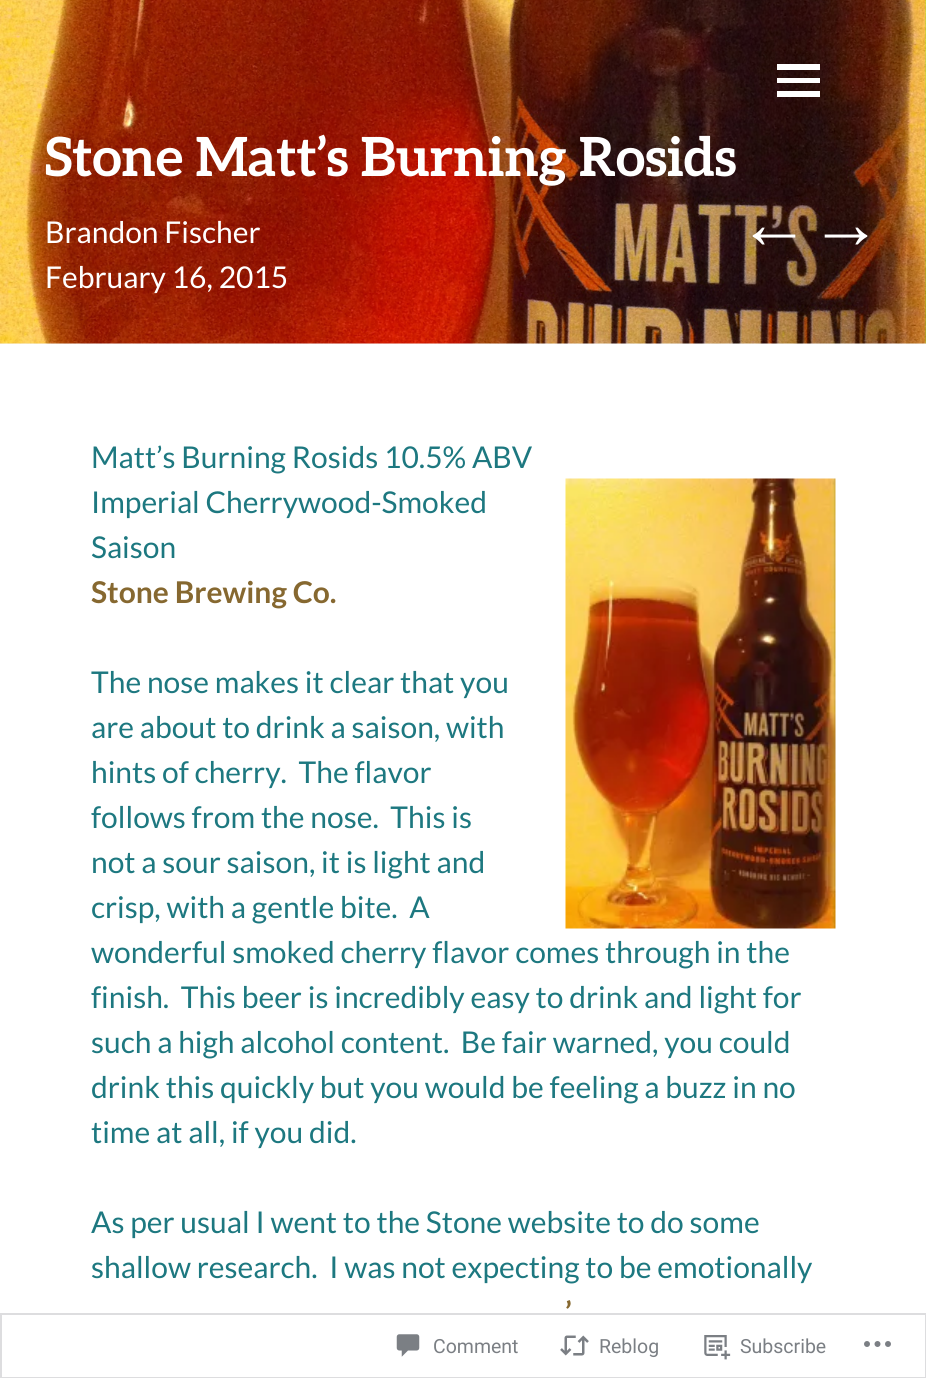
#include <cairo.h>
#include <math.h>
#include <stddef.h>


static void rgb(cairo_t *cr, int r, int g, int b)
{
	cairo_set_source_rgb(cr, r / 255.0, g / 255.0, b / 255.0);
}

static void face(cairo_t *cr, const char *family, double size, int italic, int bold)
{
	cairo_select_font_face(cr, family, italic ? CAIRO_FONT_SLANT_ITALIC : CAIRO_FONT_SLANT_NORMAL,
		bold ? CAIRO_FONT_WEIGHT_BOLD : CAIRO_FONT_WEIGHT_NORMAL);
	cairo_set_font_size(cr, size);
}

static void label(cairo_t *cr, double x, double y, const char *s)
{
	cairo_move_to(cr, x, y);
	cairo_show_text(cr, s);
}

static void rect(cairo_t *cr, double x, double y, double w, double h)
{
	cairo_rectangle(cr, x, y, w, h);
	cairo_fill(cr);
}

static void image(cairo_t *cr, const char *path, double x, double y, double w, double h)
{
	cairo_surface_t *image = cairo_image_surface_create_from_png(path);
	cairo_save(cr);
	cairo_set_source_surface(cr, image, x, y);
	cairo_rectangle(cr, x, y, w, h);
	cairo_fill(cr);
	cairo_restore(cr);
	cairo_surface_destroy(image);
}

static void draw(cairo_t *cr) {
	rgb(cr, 255, 255, 255);
	cairo_paint(cr);
	rgb(cr, 246, 247, 246);
	rect(cr, 0, 343, 926, 1);
	image(cr, "image0.png", 0, 0, 926, 344);
	face(cr, "Aleo", 54, 0, 1);
	rgb(cr, 255, 255, 255);
	label(cr, 45, 176, "Stone Matt’s Burning Rosids");
	face(cr, "Lato", 30, 0, 0);
	label(cr, 45, 243, "Brandon Fischer");
	label(cr, 45, 288, "February 16, 2015");
	face(cr, "Liberation Sans", 72, 0, 1);
	label(cr, 738, 248, "←→");
	cairo_new_path(cr);
	cairo_move_to(cr, 777, 97);
	cairo_line_to(cr, 777, 91);
	cairo_line_to(cr, 820, 91);
	cairo_line_to(cr, 820, 97);
	cairo_close_path(cr);
	cairo_move_to(cr, 777, 64);
	cairo_line_to(cr, 820, 64);
	cairo_line_to(cr, 820, 70);
	cairo_line_to(cr, 777, 70);
	cairo_close_path(cr);
	cairo_move_to(cr, 777, 83);
	cairo_line_to(cr, 777, 78);
	cairo_line_to(cr, 820, 78);
	cairo_line_to(cr, 820, 83);
	cairo_close_path(cr);
	cairo_fill(cr);
	face(cr, "Lato", 30, 0, 0);
	rgb(cr, 29, 120, 128);
	label(cr, 91, 468, "Matt’s Burning Rosids 10.5% ABV");
	label(cr, 91, 513, "Imperial Cherrywood-Smoked");
	image(cr, "image1.png", 565, 478, 271, 451);
	label(cr, 91, 558, "Saison");
	face(cr, "Lato", 30, 0, 1);
	rgb(cr, 134, 104, 48);
	label(cr, 91, 603, "Stone Brewing Co.");
	face(cr, "Lato", 30, 0, 0);
	rgb(cr, 29, 120, 128);
	label(cr, 91, 693, "The nose makes it clear that you");
	label(cr, 91, 738, "are about to drink a saison, with");
	label(cr, 91, 783, "hints of cherry.  The flavor");
	label(cr, 91, 828, "follows from the nose.  This is");
	label(cr, 91, 873, "not a sour saison, it is light and");
	label(cr, 91, 918, "crisp, with a gentle bite.  A");
	label(cr, 91, 963, "wonderful smoked cherry flavor comes through in the");
	label(cr, 91, 1008, "finish.  This beer is incredibly easy to drink and light for");
	label(cr, 91, 1053, "such a high alcohol content.  Be fair warned, you could");
	label(cr, 91, 1098, "drink this quickly but you would be feeling a buzz in no");
	label(cr, 91, 1143, "time at all, if you did.");
	label(cr, 91, 1233, "As per usual I went to the Stone website to do some");
	label(cr, 91, 1278, "shallow research.  I was not expecting to be emotionally");
	face(cr, "Lato", 30, 0, 1);
	rgb(cr, 134, 104, 48);
	label(cr, 565, 1323, "’");
	cairo_rectangle(cr, 1, 1314, 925, 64);
	cairo_set_source_rgba(cr, 0.863, 0.863, 0.871, 0.98);
	cairo_stroke(cr);
	image(cr, "image2.png", 396, 1334, 24, 23);
	face(cr, "Roboto", 19.5, 0, 0);
	rgb(cr, 123, 127, 132);
	label(cr, 433, 1353, "Comment");
	image(cr, "image3.png", 560, 1335, 29, 21);
	label(cr, 599, 1353, "Reblog");
	image(cr, "image4.png", 704, 1335, 27, 25);
	label(cr, 740, 1353, "Subscribe");
	image(cr, "image5.png", 864, 1341, 27, 6);
}

int main(void) {
	cairo_surface_t *surface = cairo_image_surface_create(CAIRO_FORMAT_RGB24, 926, 1378);
	cairo_t *cr = cairo_create(surface);
	cairo_font_options_t *options = cairo_font_options_create();
	cairo_font_options_set_hint_metrics(options, CAIRO_HINT_METRICS_OFF);
	cairo_font_options_set_hint_style(options, CAIRO_HINT_STYLE_NONE);
	cairo_set_font_options(cr, options);
	cairo_set_miter_limit(cr, 4);
	draw(cr);
	cairo_surface_write_to_png(surface, "render.png");
	cairo_font_options_destroy(options);
	cairo_destroy(cr);
	cairo_surface_destroy(surface);
	return 0;
}
